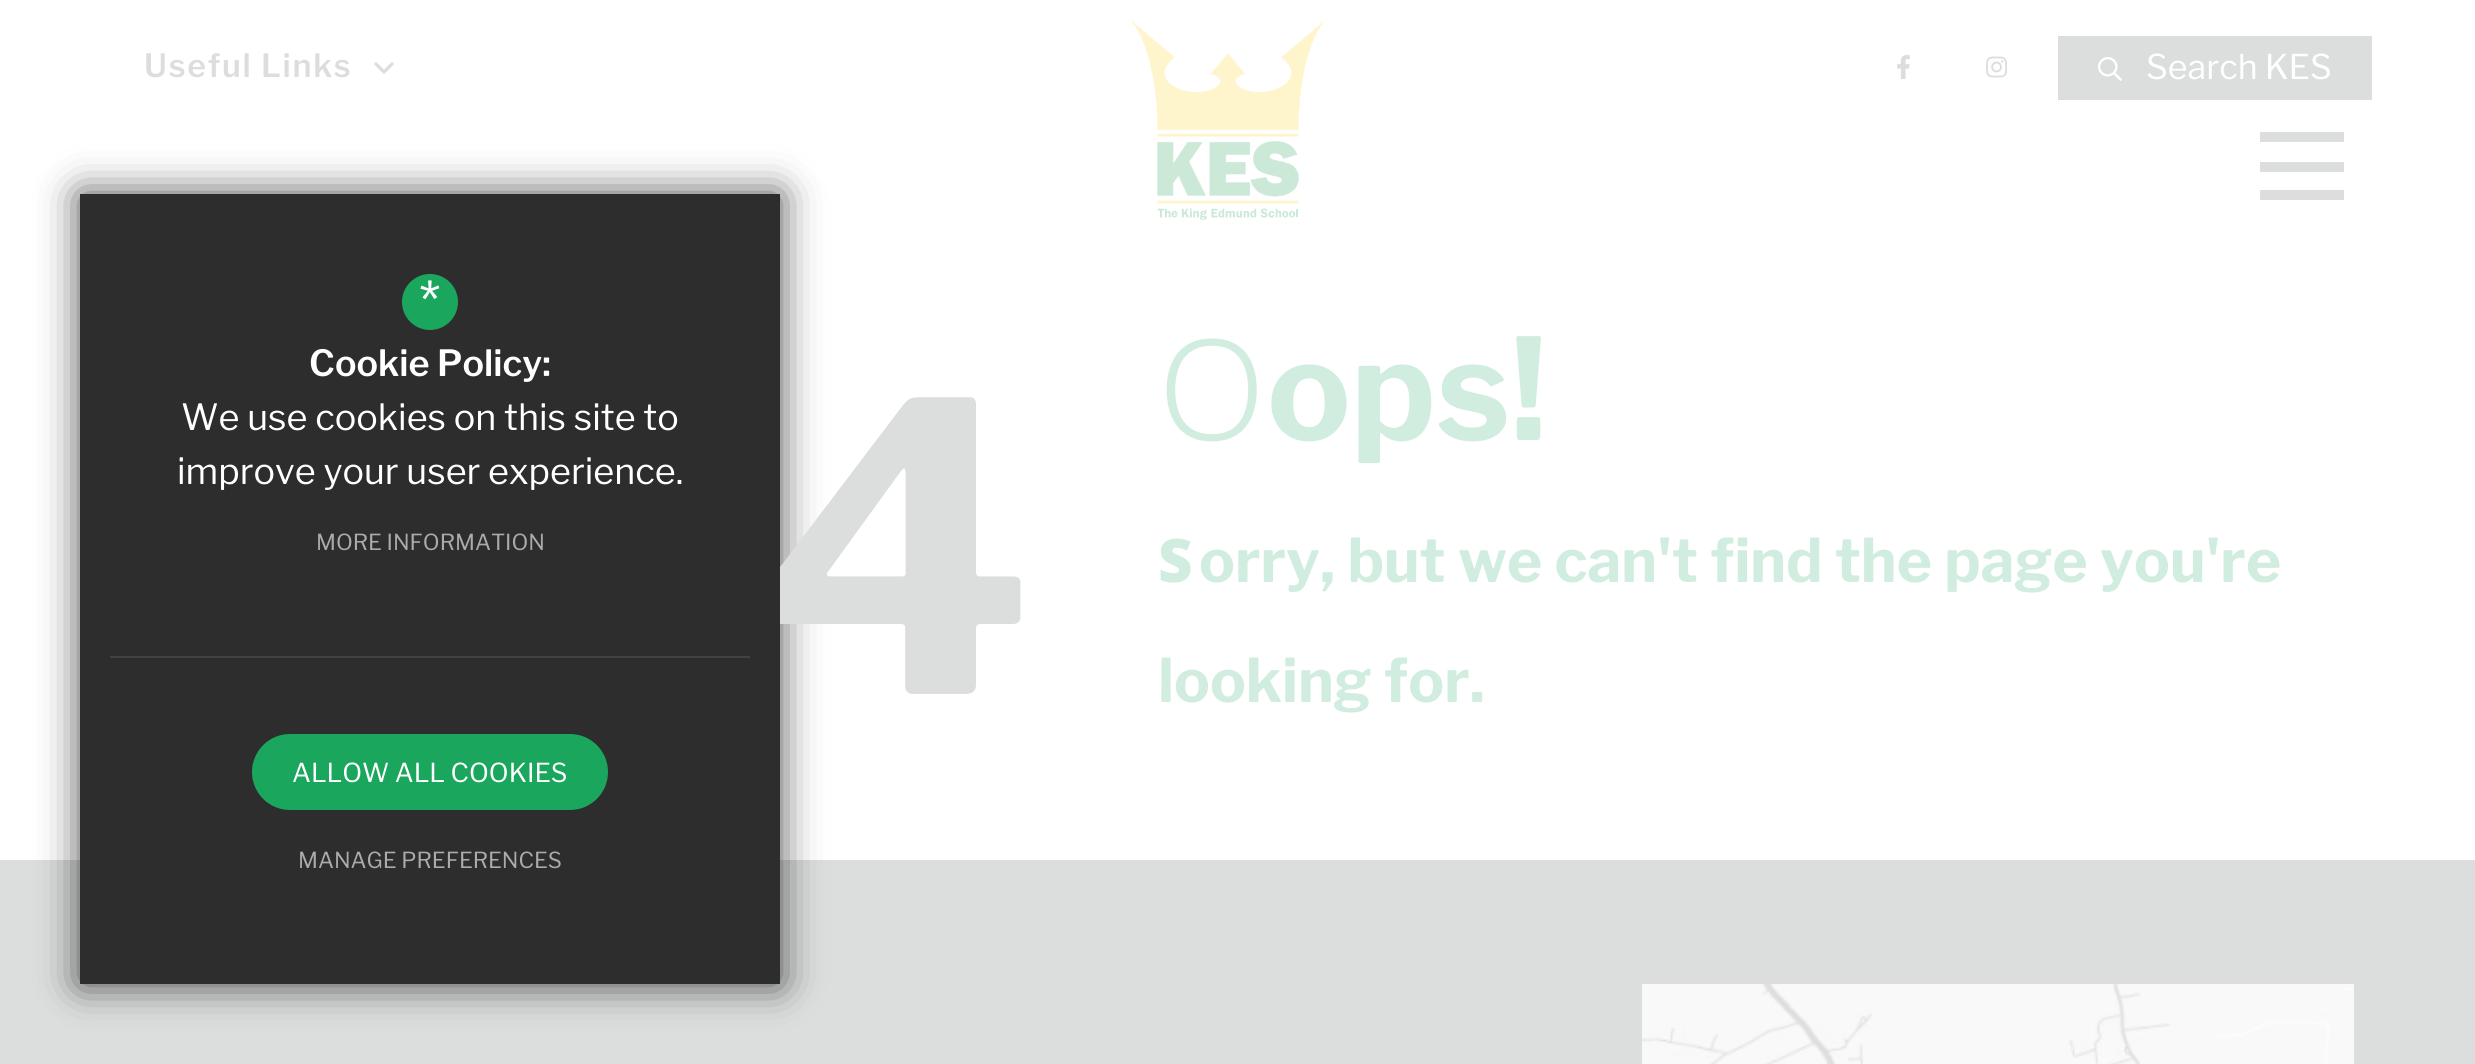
#include <cairo.h>
#include <math.h>
#include <stddef.h>


static void rgb(cairo_t *cr, int r, int g, int b)
{
	cairo_set_source_rgb(cr, r / 255.0, g / 255.0, b / 255.0);
}

static void face(cairo_t *cr, const char *family, double size, int italic, int bold)
{
	cairo_select_font_face(cr, family, italic ? CAIRO_FONT_SLANT_ITALIC : CAIRO_FONT_SLANT_NORMAL,
		bold ? CAIRO_FONT_WEIGHT_BOLD : CAIRO_FONT_WEIGHT_NORMAL);
	cairo_set_font_size(cr, size);
}

static void label(cairo_t *cr, double x, double y, const char *s)
{
	cairo_move_to(cr, x, y);
	cairo_show_text(cr, s);
}

static void tracked(cairo_t *cr, double x, double y, const char *s, double letter, double word)
{
	cairo_move_to(cr, x, y);
	while (*s) {
		char ch[5] = {0};
		int n = 0;
		do ch[n++] = *s++; while ((*s & 0xC0) == 0x80);
		cairo_show_text(cr, ch);
		cairo_rel_move_to(cr, letter + word * (*ch == ' '), 0);
	}
}

static void rect(cairo_t *cr, double x, double y, double w, double h)
{
	cairo_rectangle(cr, x, y, w, h);
	cairo_fill(cr);
}

static void rrect(cairo_t *cr, double x, double y, double w, double h, double r)
{
	cairo_new_sub_path(cr);
	cairo_arc(cr, x + w - r, y + h - r, r, 0, M_PI / 2);
	cairo_arc(cr, x + r, y + h - r, r, M_PI / 2, M_PI);
	cairo_arc(cr, x + r, y + r, r, M_PI, 1.5 * M_PI);
	cairo_arc(cr, x + w - r, y + r, r, 1.5 * M_PI, 2 * M_PI);
	cairo_close_path(cr);
}

static void soft_shadow(cairo_t *cr, double x, double y, double w, double h, double r, double blur, double alpha)
{
	cairo_push_group_with_content(cr, CAIRO_CONTENT_ALPHA);
	cairo_set_operator(cr, CAIRO_OPERATOR_SOURCE);
	for (int i = 15; i >= -15 && fmin(w, h) + blur * i / 3 > 0; i -= 2) {
		double e = blur * i / 6;
		cairo_set_source_rgba(cr, 0, 0, 0, alpha * erfc((i - 1) / 8.5) / 2);
		rrect(cr, x - e, y - e, w + 2 * e, h + 2 * e, fmax(0, fmin(r + e + blur * .6, fmin(w, h) / 2 + e)));
		cairo_fill(cr);
	}
	cairo_pattern_t *soft = cairo_pop_group(cr);
	cairo_mask(cr, soft);
	cairo_pattern_destroy(soft);
}

static void image(cairo_t *cr, const char *path, double x, double y, double w, double h)
{
	cairo_surface_t *image = cairo_image_surface_create_from_png(path);
	cairo_save(cr);
	cairo_set_source_surface(cr, image, x, y);
	cairo_rectangle(cr, x, y, w, h);
	cairo_fill(cr);
	cairo_restore(cr);
	cairo_surface_destroy(image);
}

static void draw(cairo_t *cr) {
	rgb(cr, 255, 255, 255);
	cairo_paint(cr);
	face(cr, "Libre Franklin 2 Thin", 32, 0, 0);
	rgb(cr, 220, 222, 221);
	tracked(cr, 144, 77, "Useful Links", 1.75, 0);
	image(cr, "image0.png", 374, 62, 20, 12);
	image(cr, "image1.png", 1131, 20, 194, 200);
	image(cr, "image2.png", 1897, 55, 13, 24);
	image(cr, "image3.png", 1986, 56, 22, 22);
	rect(cr, 2058, 36, 314, 64);
	image(cr, "image4.png", 2098, 57, 24, 24);
	face(cr, "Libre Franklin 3 Thin", 34, 0, 0);
	rgb(cr, 255, 255, 255);
	label(cr, 2146, 79, "Search KES");
	rgb(cr, 220, 222, 221);
	rect(cr, 2260, 132, 84, 10);
	rect(cr, 2260, 162, 84, 10);
	rect(cr, 2260, 190, 84, 10);
	rect(cr, 0, 860, 2475, 204);
	rgb(cr, 0, 0, 0);
	soft_shadow(cr, 80, 194, 700, 790, 0, 20, 0.7);
	face(cr, "Libre Franklin Thin", 400, 0, 0);
	rgb(cr, 220, 222, 221);
	label(cr, 758, 694, "4");
	rgb(cr, 45, 45, 45);
	rect(cr, 80, 194, 700, 790);
	rgb(cr, 66, 66, 66);
	rect(cr, 110, 656, 640, 2);
	rgb(cr, 26, 167, 93);
	cairo_new_path(cr);
	cairo_arc(cr, 430, 302, 28, 0, 2 * M_PI);
	cairo_fill(cr);
	face(cr, "Libre Franklin 3 Thin", 56, 0, 0);
	rgb(cr, 255, 255, 255);
	label(cr, 419, 322, "*");
	face(cr, "Libre Franklin 2 Thin", 36, 0, 0);
	label(cr, 309, 376, "Cookie Policy:");
	face(cr, "Libre Franklin 3 Thin", 36, 0, 0);
	label(cr, 181, 430, "We use cookies on this site to");
	label(cr, 177, 484, "improve your user experience.");
	face(cr, "Libre Franklin 3 Thin", 22, 0, 0);
	rgb(cr, 171, 171, 171);
	label(cr, 316, 550, "MORE INFORMATION");
	rgb(cr, 26, 167, 93);
	rrect(cr, 252, 734, 356, 76, 38);
	cairo_fill(cr);
	face(cr, "Libre Franklin 3 Thin", 26, 0, 0);
	rgb(cr, 255, 255, 255);
	label(cr, 292, 782, "ALLOW ALL COOKIES");
	face(cr, "Libre Franklin 3 Thin", 22, 0, 0);
	rgb(cr, 171, 171, 171);
	label(cr, 298, 868, "MANAGE PREFERENCES");
	face(cr, "Noto Sans Light", 140, 0, 0);
	rgb(cr, 209, 237, 223);
	label(cr, 1158, 440, "O");
	face(cr, "Libre Franklin Thin", 140, 0, 0);
	label(cr, 1267, 440, "ops!");
	face(cr, "Noto Sans Black", 60, 0, 0);
	label(cr, 1158, 582, "S");
	face(cr, "Libre Franklin Thin", 60, 0, 0);
	label(cr, 1199, 582, "orry, but we can't find the page you're");
	label(cr, 1158, 702, "looking for.");
	image(cr, "image5.png", 1642, 984, 712, 80);
}

int main(void) {
	cairo_surface_t *surface = cairo_image_surface_create(CAIRO_FORMAT_RGB24, 2475, 1064);
	cairo_t *cr = cairo_create(surface);
	cairo_font_options_t *options = cairo_font_options_create();
	cairo_font_options_set_hint_metrics(options, CAIRO_HINT_METRICS_OFF);
	cairo_font_options_set_hint_style(options, CAIRO_HINT_STYLE_NONE);
	cairo_set_font_options(cr, options);
	cairo_set_miter_limit(cr, 4);
	draw(cr);
	cairo_surface_write_to_png(surface, "render.png");
	cairo_font_options_destroy(options);
	cairo_destroy(cr);
	cairo_surface_destroy(surface);
	return 0;
}
